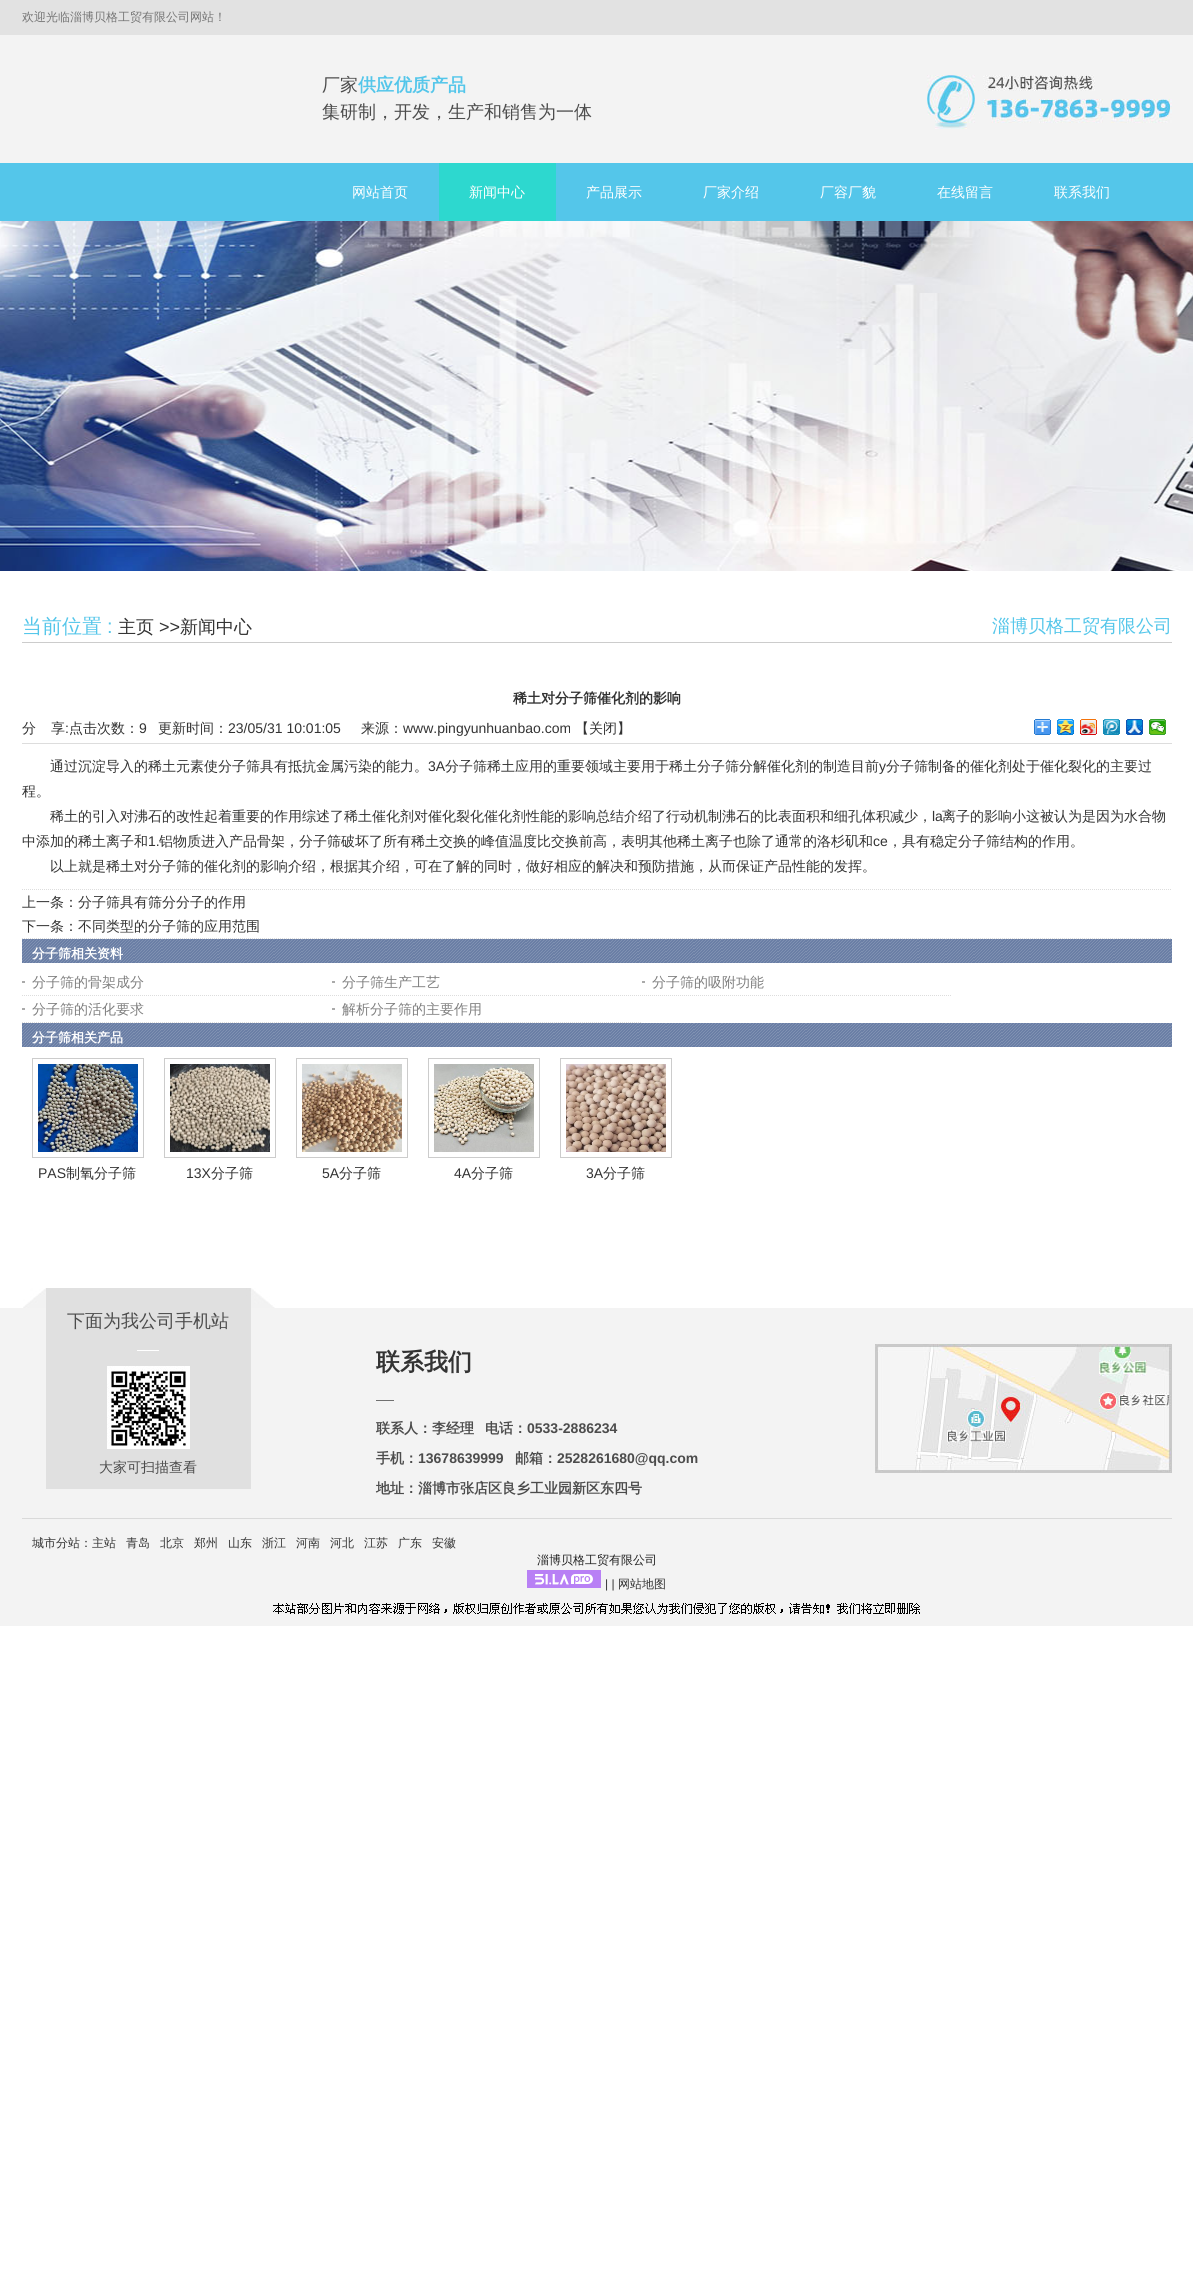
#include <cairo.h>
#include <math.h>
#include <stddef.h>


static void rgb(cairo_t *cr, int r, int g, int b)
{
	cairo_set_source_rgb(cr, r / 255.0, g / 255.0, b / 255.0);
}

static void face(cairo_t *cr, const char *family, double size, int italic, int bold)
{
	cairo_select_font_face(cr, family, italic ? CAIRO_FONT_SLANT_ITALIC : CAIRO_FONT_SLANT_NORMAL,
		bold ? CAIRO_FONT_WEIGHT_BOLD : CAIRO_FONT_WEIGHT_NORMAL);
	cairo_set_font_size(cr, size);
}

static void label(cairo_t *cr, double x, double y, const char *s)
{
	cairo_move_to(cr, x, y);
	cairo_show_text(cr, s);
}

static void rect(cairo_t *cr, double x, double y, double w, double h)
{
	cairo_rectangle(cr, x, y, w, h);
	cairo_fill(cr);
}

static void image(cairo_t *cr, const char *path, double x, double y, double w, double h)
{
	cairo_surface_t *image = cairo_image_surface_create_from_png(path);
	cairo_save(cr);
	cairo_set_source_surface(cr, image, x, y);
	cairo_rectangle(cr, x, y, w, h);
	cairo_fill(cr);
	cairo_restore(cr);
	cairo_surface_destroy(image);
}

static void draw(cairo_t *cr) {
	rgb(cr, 255, 255, 255);
	cairo_paint(cr);
	rgb(cr, 226, 226, 226);
	rect(cr, 0, 0, 1193, 35);
	face(cr, "WenQuanYi Zen Hei Medium", 12, 0, 0);
	rgb(cr, 117, 117, 117);
	label(cr, 22, 21, "欢迎光临淄博贝格工贸有限公司网站！");
	rgb(cr, 243, 243, 243);
	rect(cr, 0, 35, 1193, 128);
	face(cr, "WenQuanYi Zen Hei Medium", 18, 0, 0);
	rgb(cr, 76, 76, 76);
	label(cr, 322, 91, "厂家");
	face(cr, "WenQuanYi Zen Hei", 18, 0, 1);
	rgb(cr, 84, 198, 234);
	label(cr, 358, 91, "供应优质产品");
	face(cr, "WenQuanYi Zen Hei Medium", 18, 0, 0);
	rgb(cr, 76, 76, 76);
	label(cr, 322, 118, "集研制，开发，生产和销售为一体");
	image(cr, "image0.png", 927, 75, 245, 54);
	rgb(cr, 84, 198, 234);
	rect(cr, 0, 163, 1193, 58);
	face(cr, "WenQuanYi Zen Hei Medium", 14, 0, 0);
	rgb(cr, 255, 255, 255);
	label(cr, 352, 197, "网站首页");
	rgb(cr, 45, 216, 207);
	rect(cr, 439, 163, 117, 58);
	rgb(cr, 255, 255, 255);
	label(cr, 469, 197, "新闻中心");
	label(cr, 586, 197, "产品展示");
	label(cr, 703, 197, "厂家介绍");
	label(cr, 820, 197, "厂容厂貌");
	label(cr, 937, 197, "在线留言");
	label(cr, 1054, 197, "联系我们");
	image(cr, "image1.png", 0, 221, 1193, 350);
	rgb(cr, 204, 204, 204);
	rect(cr, 22, 642, 1150, 1);
	face(cr, "WenQuanYi Zen Hei Medium", 20, 0, 0);
	rgb(cr, 84, 198, 234);
	label(cr, 22, 633, "当前位置");
	face(cr, "Liberation Sans", 20, 0, 0);
	label(cr, 107, 633, ":");
	face(cr, "WenQuanYi Zen Hei Medium", 18, 0, 0);
	rgb(cr, 51, 51, 51);
	label(cr, 118, 633, "主页");
	face(cr, "Liberation Sans", 18, 0, 0);
	label(cr, 159, 633, ">>");
	face(cr, "WenQuanYi Zen Hei Medium", 18, 0, 0);
	label(cr, 180, 633, "新闻中心");
	rgb(cr, 84, 198, 234);
	label(cr, 992, 632, "淄博贝格工贸有限公司");
	face(cr, "WenQuanYi Zen Hei", 14, 0, 1);
	rgb(cr, 51, 51, 51);
	label(cr, 513, 703, "稀土对分子筛催化剂的影响");
	rgb(cr, 221, 221, 221);
	rect(cr, 22, 743, 1150, 1);
	face(cr, "WenQuanYi Zen Hei Medium", 14, 0, 0);
	rgb(cr, 51, 51, 51);
	label(cr, 22, 733, "分");
	label(cr, 51, 733, "享");
	face(cr, "Liberation Sans", 14, 0, 0);
	label(cr, 65, 733, ":");
	face(cr, "WenQuanYi Zen Hei Medium", 14, 0, 0);
	label(cr, 69, 733, "点击次数：");
	face(cr, "Liberation Sans", 14, 0, 0);
	label(cr, 139, 733, "9");
	face(cr, "WenQuanYi Zen Hei Medium", 14, 0, 0);
	label(cr, 158, 733, "更新时间：");
	face(cr, "Liberation Sans", 14, 0, 0);
	label(cr, 228, 733, "23/05/31 10:01:05");
	face(cr, "WenQuanYi Zen Hei Medium", 14, 0, 0);
	label(cr, 361, 733, "来源：");
	face(cr, "Liberation Sans", 14, 0, 0);
	label(cr, 403, 733, "www.pingyunhuanbao.com");
	face(cr, "WenQuanYi Zen Hei Medium", 14, 0, 0);
	label(cr, 575, 733, "【关闭】");
	image(cr, "image2.png", 1034, 719, 17, 16);
	image(cr, "image3.png", 1057, 719, 17, 16);
	image(cr, "image4.png", 1080, 719, 17, 16);
	image(cr, "image5.png", 1103, 719, 17, 16);
	image(cr, "image6.png", 1126, 719, 17, 16);
	image(cr, "image7.png", 1149, 719, 17, 16);
	label(cr, 50, 771, "通过沉淀导入的稀土元素使分子筛具有抵抗金属污染的能力。");
	face(cr, "Liberation Sans", 14, 0, 0);
	label(cr, 428, 771, "3A");
	face(cr, "WenQuanYi Zen Hei Medium", 14, 0, 0);
	label(cr, 445, 771, "分子筛稀土应用的重要领域主要用于稀土分子筛分解催化剂的制造目前");
	face(cr, "Liberation Sans", 14, 0, 0);
	label(cr, 879, 771, "y");
	face(cr, "WenQuanYi Zen Hei Medium", 14, 0, 0);
	label(cr, 886, 771, "分子筛制备的催化剂处于催化裂化的主要过");
	label(cr, 22, 796, "程。");
	label(cr, 50, 821, "稀土的引入对沸石的改性起着重要的作用综述了稀土催化剂对催化裂化催化剂性能的影响总结介绍了行动机制沸石的比表面积和细孔体积减少，");
	face(cr, "Liberation Sans", 14, 0, 0);
	label(cr, 932, 821, "la");
	face(cr, "WenQuanYi Zen Hei Medium", 14, 0, 0);
	label(cr, 942, 821, "离子的影响小这被认为是因为水合物");
	label(cr, 22, 846, "中添加的稀土离子和");
	face(cr, "Liberation Sans", 14, 0, 0);
	label(cr, 148, 846, "1.");
	face(cr, "WenQuanYi Zen Hei Medium", 14, 0, 0);
	label(cr, 159, 846, "铝物质进入产品骨架，分子筛破坏了所有稀土交换的峰值温度比交换前高，表明其他稀土离子也除了通常的洛杉矶和");
	face(cr, "Liberation Sans", 14, 0, 0);
	label(cr, 873, 846, "ce");
	face(cr, "WenQuanYi Zen Hei Medium", 14, 0, 0);
	label(cr, 888, 846, "，具有稳定分子筛结构的作用。");
	label(cr, 50, 871, "以上就是稀土对分子筛的催化剂的影响介绍，根据其介绍，可在了解的同时，做好相应的解决和预防措施，从而保证产品性能的发挥。");
	cairo_new_path(cr);
	cairo_move_to(cr, 22, 889.5);
	cairo_line_to(cr, 1172, 889.5);
	rgb(cr, 221, 221, 221);
	cairo_set_line_width(cr, 1);
	cairo_set_dash(cr, (double[]){1, 1}, 2, 0);
	cairo_stroke(cr);
	cairo_new_path(cr);
	cairo_move_to(cr, 22, 938.5);
	cairo_line_to(cr, 1172, 938.5);
	cairo_stroke(cr);
	rgb(cr, 51, 51, 51);
	label(cr, 22, 907, "上一条：分子筛具有筛分分子的作用");
	label(cr, 22, 931, "下一条：不同类型的分子筛的应用范围");
	image(cr, "image8.png", 22, 939, 1150, 24);
	face(cr, "WenQuanYi Zen Hei", 13, 0, 1);
	rgb(cr, 255, 255, 255);
	label(cr, 32, 958, "分子筛相关资料");
	rgb(cr, 170, 170, 170);
	rect(cr, 22, 981, 3, 2);
	cairo_new_path(cr);
	cairo_move_to(cr, 22, 995.5);
	cairo_line_to(cr, 332, 995.5);
	rgb(cr, 221, 221, 221);
	cairo_stroke(cr);
	face(cr, "WenQuanYi Zen Hei Medium", 14, 0, 0);
	rgb(cr, 128, 128, 128);
	label(cr, 32, 987, "分子筛的骨架成分");
	rgb(cr, 170, 170, 170);
	rect(cr, 332, 981, 3, 2);
	cairo_new_path(cr);
	cairo_move_to(cr, 332, 995.5);
	cairo_line_to(cr, 642, 995.5);
	rgb(cr, 221, 221, 221);
	cairo_stroke(cr);
	rgb(cr, 128, 128, 128);
	label(cr, 342, 987, "分子筛生产工艺");
	rgb(cr, 170, 170, 170);
	rect(cr, 642, 981, 3, 2);
	cairo_new_path(cr);
	cairo_move_to(cr, 642, 995.5);
	cairo_line_to(cr, 952, 995.5);
	rgb(cr, 221, 221, 221);
	cairo_stroke(cr);
	rgb(cr, 128, 128, 128);
	label(cr, 652, 987, "分子筛的吸附功能");
	rgb(cr, 170, 170, 170);
	rect(cr, 22, 1008, 3, 2);
	cairo_new_path(cr);
	cairo_move_to(cr, 22, 1022.5);
	cairo_line_to(cr, 332, 1022.5);
	rgb(cr, 221, 221, 221);
	cairo_stroke(cr);
	rgb(cr, 128, 128, 128);
	label(cr, 32, 1014, "分子筛的活化要求");
	rgb(cr, 170, 170, 170);
	rect(cr, 332, 1008, 3, 2);
	cairo_new_path(cr);
	cairo_move_to(cr, 332, 1022.5);
	cairo_line_to(cr, 642, 1022.5);
	rgb(cr, 221, 221, 221);
	cairo_stroke(cr);
	rgb(cr, 128, 128, 128);
	label(cr, 342, 1014, "解析分子筛的主要作用");
	image(cr, "image8.png", 22, 1023, 1150, 24);
	face(cr, "WenQuanYi Zen Hei", 13, 0, 1);
	rgb(cr, 255, 255, 255);
	label(cr, 32, 1042, "分子筛相关产品");
	cairo_rectangle(cr, 32.5, 1058.5, 111, 99);
	rgb(cr, 204, 204, 204);
	cairo_set_dash(cr, NULL, 0, 0);
	cairo_stroke(cr);
	image(cr, "image9.png", 38, 1064, 100, 88);
	face(cr, "Liberation Sans", 14, 0, 0);
	rgb(cr, 51, 51, 51);
	label(cr, 38, 1178, "PAS");
	face(cr, "WenQuanYi Zen Hei Medium", 14, 0, 0);
	label(cr, 66, 1178, "制氧分子筛");
	cairo_rectangle(cr, 164.5, 1058.5, 111, 99);
	rgb(cr, 204, 204, 204);
	cairo_stroke(cr);
	image(cr, "image10.png", 170, 1064, 100, 88);
	face(cr, "Liberation Sans", 14, 0, 0);
	rgb(cr, 51, 51, 51);
	label(cr, 186, 1178, "13X");
	face(cr, "WenQuanYi Zen Hei Medium", 14, 0, 0);
	label(cr, 211, 1178, "分子筛");
	cairo_rectangle(cr, 296.5, 1058.5, 111, 99);
	rgb(cr, 204, 204, 204);
	cairo_stroke(cr);
	image(cr, "image11.png", 302, 1064, 100, 88);
	face(cr, "Liberation Sans", 14, 0, 0);
	rgb(cr, 51, 51, 51);
	label(cr, 322, 1178, "5A");
	face(cr, "WenQuanYi Zen Hei Medium", 14, 0, 0);
	label(cr, 339, 1178, "分子筛");
	cairo_rectangle(cr, 428.5, 1058.5, 111, 99);
	rgb(cr, 204, 204, 204);
	cairo_stroke(cr);
	image(cr, "image12.png", 434, 1064, 100, 88);
	face(cr, "Liberation Sans", 14, 0, 0);
	rgb(cr, 51, 51, 51);
	label(cr, 454, 1178, "4A");
	face(cr, "WenQuanYi Zen Hei Medium", 14, 0, 0);
	label(cr, 471, 1178, "分子筛");
	cairo_rectangle(cr, 560.5, 1058.5, 111, 99);
	rgb(cr, 204, 204, 204);
	cairo_stroke(cr);
	image(cr, "image13.png", 566, 1064, 100, 88);
	face(cr, "Liberation Sans", 14, 0, 0);
	rgb(cr, 51, 51, 51);
	label(cr, 586, 1178, "3A");
	face(cr, "WenQuanYi Zen Hei Medium", 14, 0, 0);
	label(cr, 603, 1178, "分子筛");
	image(cr, "image14.png", 23, 1288, 252, 20);
	rgb(cr, 243, 243, 243);
	rect(cr, 0, 1308, 1193, 318);
	rgb(cr, 224, 224, 224);
	rect(cr, 46, 1308, 205, 181);
	face(cr, "WenQuanYi Zen Hei Medium", 18, 0, 0);
	rgb(cr, 76, 76, 76);
	label(cr, 67, 1327, "下面为我公司手机站");
	rgb(cr, 255, 255, 255);
	rect(cr, 137, 1350, 22, 1);
	image(cr, "image15.png", 107, 1366, 83, 83);
	face(cr, "WenQuanYi Zen Hei Medium", 14, 0, 0);
	rgb(cr, 76, 76, 76);
	label(cr, 99, 1472, "大家可扫描查看");
	face(cr, "WenQuanYi Zen Hei", 24, 0, 1);
	rgb(cr, 51, 51, 51);
	label(cr, 376, 1370, "联系我们");
	rgb(cr, 112, 112, 112);
	rect(cr, 376, 1400, 18, 1);
	face(cr, "WenQuanYi Zen Hei", 14, 0, 1);
	rgb(cr, 76, 76, 76);
	label(cr, 376, 1433, "联系人：李经理");
	label(cr, 485, 1433, "电话：");
	face(cr, "Liberation Sans", 14, 0, 1);
	label(cr, 527, 1433, "0533-2886234");
	face(cr, "WenQuanYi Zen Hei", 14, 0, 1);
	label(cr, 376, 1463, "手机：");
	face(cr, "Liberation Sans", 14, 0, 1);
	label(cr, 418, 1463, "13678639999");
	face(cr, "WenQuanYi Zen Hei", 14, 0, 1);
	label(cr, 515, 1463, "邮箱：");
	face(cr, "Liberation Sans", 14, 0, 1);
	label(cr, 557, 1463, "2528261680@qq.com");
	face(cr, "WenQuanYi Zen Hei", 14, 0, 1);
	label(cr, 376, 1493, "地址：淄博市张店区良乡工业园新区东四号");
	image(cr, "image16.png", 875, 1344, 297, 129);
	rgb(cr, 217, 217, 217);
	rect(cr, 22, 1518, 1150, 1);
	face(cr, "WenQuanYi Zen Hei Medium", 12, 0, 0);
	rgb(cr, 51, 51, 51);
	label(cr, 32, 1547, "城市分站：主站");
	label(cr, 126, 1547, "青岛");
	label(cr, 160, 1547, "北京");
	label(cr, 194, 1547, "郑州");
	label(cr, 228, 1547, "山东");
	label(cr, 262, 1547, "浙江");
	label(cr, 296, 1547, "河南");
	label(cr, 330, 1547, "河北");
	label(cr, 364, 1547, "江苏");
	label(cr, 398, 1547, "广东");
	label(cr, 432, 1547, "安徽");
	rgb(cr, 33, 33, 33);
	label(cr, 537, 1564, "淄博贝格工贸有限公司");
	image(cr, "image17.png", 527, 1570, 74, 18);
	face(cr, "Liberation Sans", 12, 0, 0);
	rgb(cr, 51, 51, 51);
	label(cr, 605, 1588, "| |");
	face(cr, "WenQuanYi Zen Hei Medium", 12, 0, 0);
	label(cr, 618, 1588, "网站地图");
	image(cr, "image18.png", 273, 1603, 647, 11);
}

int main(void) {
	cairo_surface_t *surface = cairo_image_surface_create(CAIRO_FORMAT_RGB24, 1193, 2286);
	cairo_t *cr = cairo_create(surface);
	cairo_font_options_t *options = cairo_font_options_create();
	cairo_font_options_set_hint_metrics(options, CAIRO_HINT_METRICS_OFF);
	cairo_font_options_set_hint_style(options, CAIRO_HINT_STYLE_NONE);
	cairo_set_font_options(cr, options);
	cairo_set_miter_limit(cr, 4);
	draw(cr);
	cairo_surface_write_to_png(surface, "render.png");
	cairo_font_options_destroy(options);
	cairo_destroy(cr);
	cairo_surface_destroy(surface);
	return 0;
}
